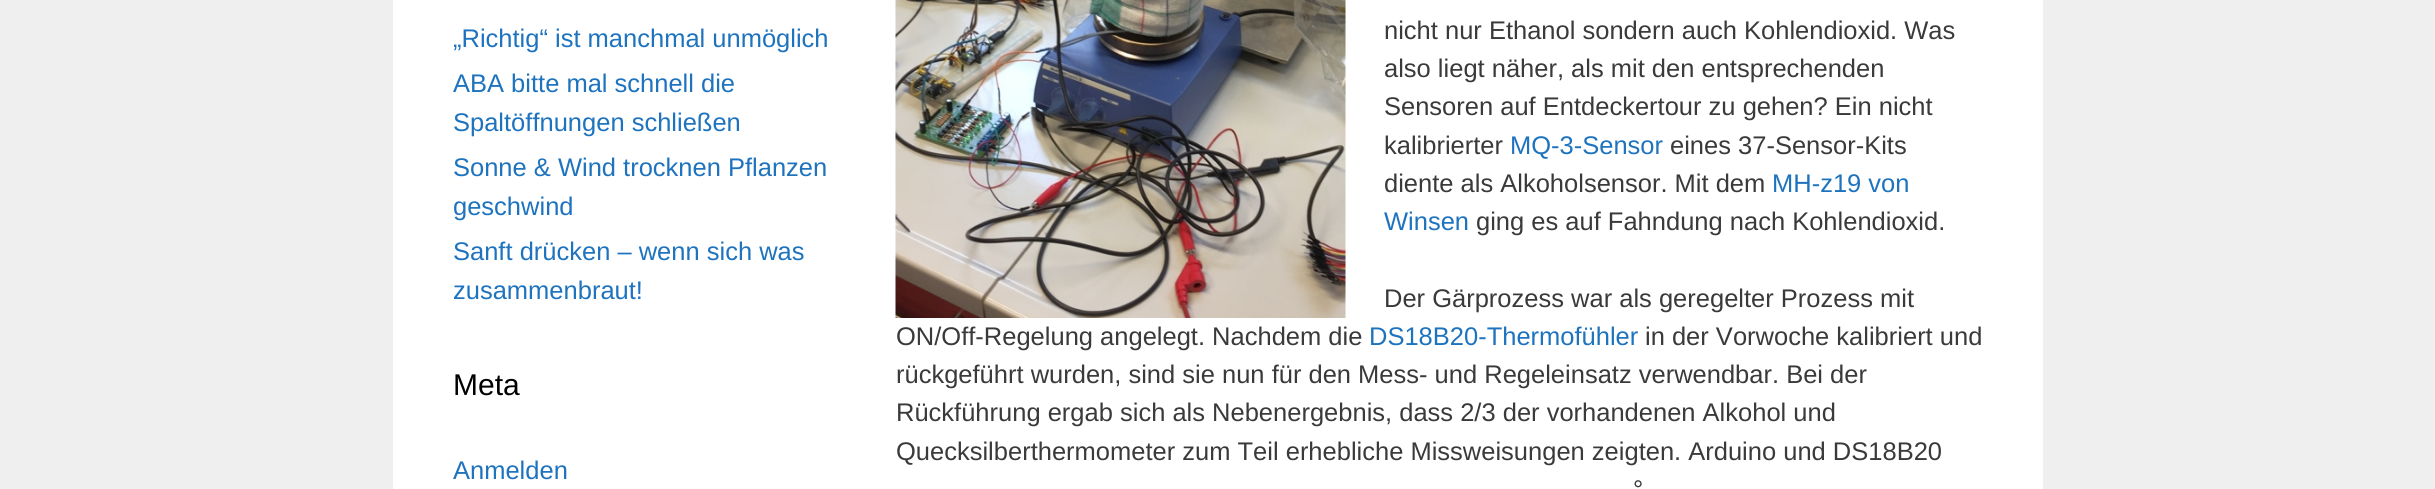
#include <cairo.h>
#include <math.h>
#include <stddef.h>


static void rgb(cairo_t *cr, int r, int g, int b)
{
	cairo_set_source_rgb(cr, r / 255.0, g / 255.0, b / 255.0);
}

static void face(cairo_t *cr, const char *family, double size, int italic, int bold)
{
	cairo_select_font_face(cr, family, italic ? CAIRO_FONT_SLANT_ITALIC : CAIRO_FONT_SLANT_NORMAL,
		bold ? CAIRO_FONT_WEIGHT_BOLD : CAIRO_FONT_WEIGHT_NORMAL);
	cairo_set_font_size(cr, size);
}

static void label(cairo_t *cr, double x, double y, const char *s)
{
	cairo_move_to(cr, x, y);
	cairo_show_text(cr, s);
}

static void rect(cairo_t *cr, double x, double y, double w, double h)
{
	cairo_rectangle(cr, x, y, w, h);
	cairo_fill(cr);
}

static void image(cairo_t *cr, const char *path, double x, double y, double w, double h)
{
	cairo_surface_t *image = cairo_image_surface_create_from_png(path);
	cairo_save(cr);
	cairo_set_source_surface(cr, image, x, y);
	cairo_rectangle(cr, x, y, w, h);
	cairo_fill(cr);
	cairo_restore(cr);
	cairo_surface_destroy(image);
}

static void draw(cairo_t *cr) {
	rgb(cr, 239, 239, 239);
	cairo_paint(cr);
	rgb(cr, 255, 255, 255);
	rect(cr, 393, 0, 1650, 489);
	face(cr, "Liberation Sans", 25.5, 0, 0);
	rgb(cr, 30, 115, 190);
	label(cr, 453, 47, "„Richtig“ ist manchmal unmöglich");
	label(cr, 453, 92, "ABA bitte mal schnell die");
	label(cr, 453, 131, "Spaltöffnungen schließen");
	label(cr, 453, 176, "Sonne & Wind trocknen Pflanzen");
	label(cr, 453, 215, "geschwind");
	label(cr, 453, 260, "Sanft drücken – wenn sich was");
	label(cr, 453, 299, "zusammenbraut!");
	face(cr, "Liberation Sans", 30, 0, 0);
	rgb(cr, 0, 0, 0);
	label(cr, 453, 395, "Meta");
	face(cr, "Liberation Sans", 25.5, 0, 0);
	rgb(cr, 30, 115, 190);
	label(cr, 453, 479, "Anmelden");
	image(cr, "image0.png", 895, 0, 451, 318);
	rgb(cr, 58, 58, 58);
	label(cr, 1384, 39, "nicht nur Ethanol sondern auch Kohlendioxid. Was");
	label(cr, 1384, 77, "also liegt näher, als mit den entsprechenden");
	label(cr, 1384, 115, "Sensoren auf Entdeckertour zu gehen? Ein nicht");
	label(cr, 1384, 154, "kalibrierter");
	rgb(cr, 30, 115, 190);
	label(cr, 1510, 154, "MQ-3-Sensor");
	rgb(cr, 58, 58, 58);
	label(cr, 1670, 154, "eines 37-Sensor-Kits");
	label(cr, 1384, 192, "diente als Alkoholsensor. Mit dem");
	rgb(cr, 30, 115, 190);
	label(cr, 1772, 192, "MH-z19 von");
	label(cr, 1384, 230, "Winsen");
	rgb(cr, 58, 58, 58);
	label(cr, 1476, 230, "ging es auf Fahndung nach Kohlendioxid.");
	label(cr, 1384, 307, "Der Gärprozess war als geregelter Prozess mit");
	label(cr, 896, 345, "ON/Off-Regelung angelegt. Nachdem die");
	rgb(cr, 30, 115, 190);
	label(cr, 1369, 345, "DS18B20-Thermofühler");
	rgb(cr, 58, 58, 58);
	label(cr, 1645, 345, "in der Vorwoche kalibriert und");
	label(cr, 896, 383, "rückgeführt wurden, sind sie nun für den Mess- und Regeleinsatz verwendbar. Bei der");
	label(cr, 896, 421, "Rückführung ergab sich als Nebenergebnis, dass 2/3 der vorhandenen Alkohol und");
	label(cr, 896, 460, "Quecksilberthermometer zum Teil erhebliche Missweisungen zeigten. Arduino und DS18B20");
	label(cr, 1633, 498, "°");
}

int main(void) {
	cairo_surface_t *surface = cairo_image_surface_create(CAIRO_FORMAT_RGB24, 2435, 489);
	cairo_t *cr = cairo_create(surface);
	cairo_font_options_t *options = cairo_font_options_create();
	cairo_font_options_set_hint_metrics(options, CAIRO_HINT_METRICS_OFF);
	cairo_font_options_set_hint_style(options, CAIRO_HINT_STYLE_NONE);
	cairo_set_font_options(cr, options);
	cairo_set_miter_limit(cr, 4);
	draw(cr);
	cairo_surface_write_to_png(surface, "render.png");
	cairo_font_options_destroy(options);
	cairo_destroy(cr);
	cairo_surface_destroy(surface);
	return 0;
}
